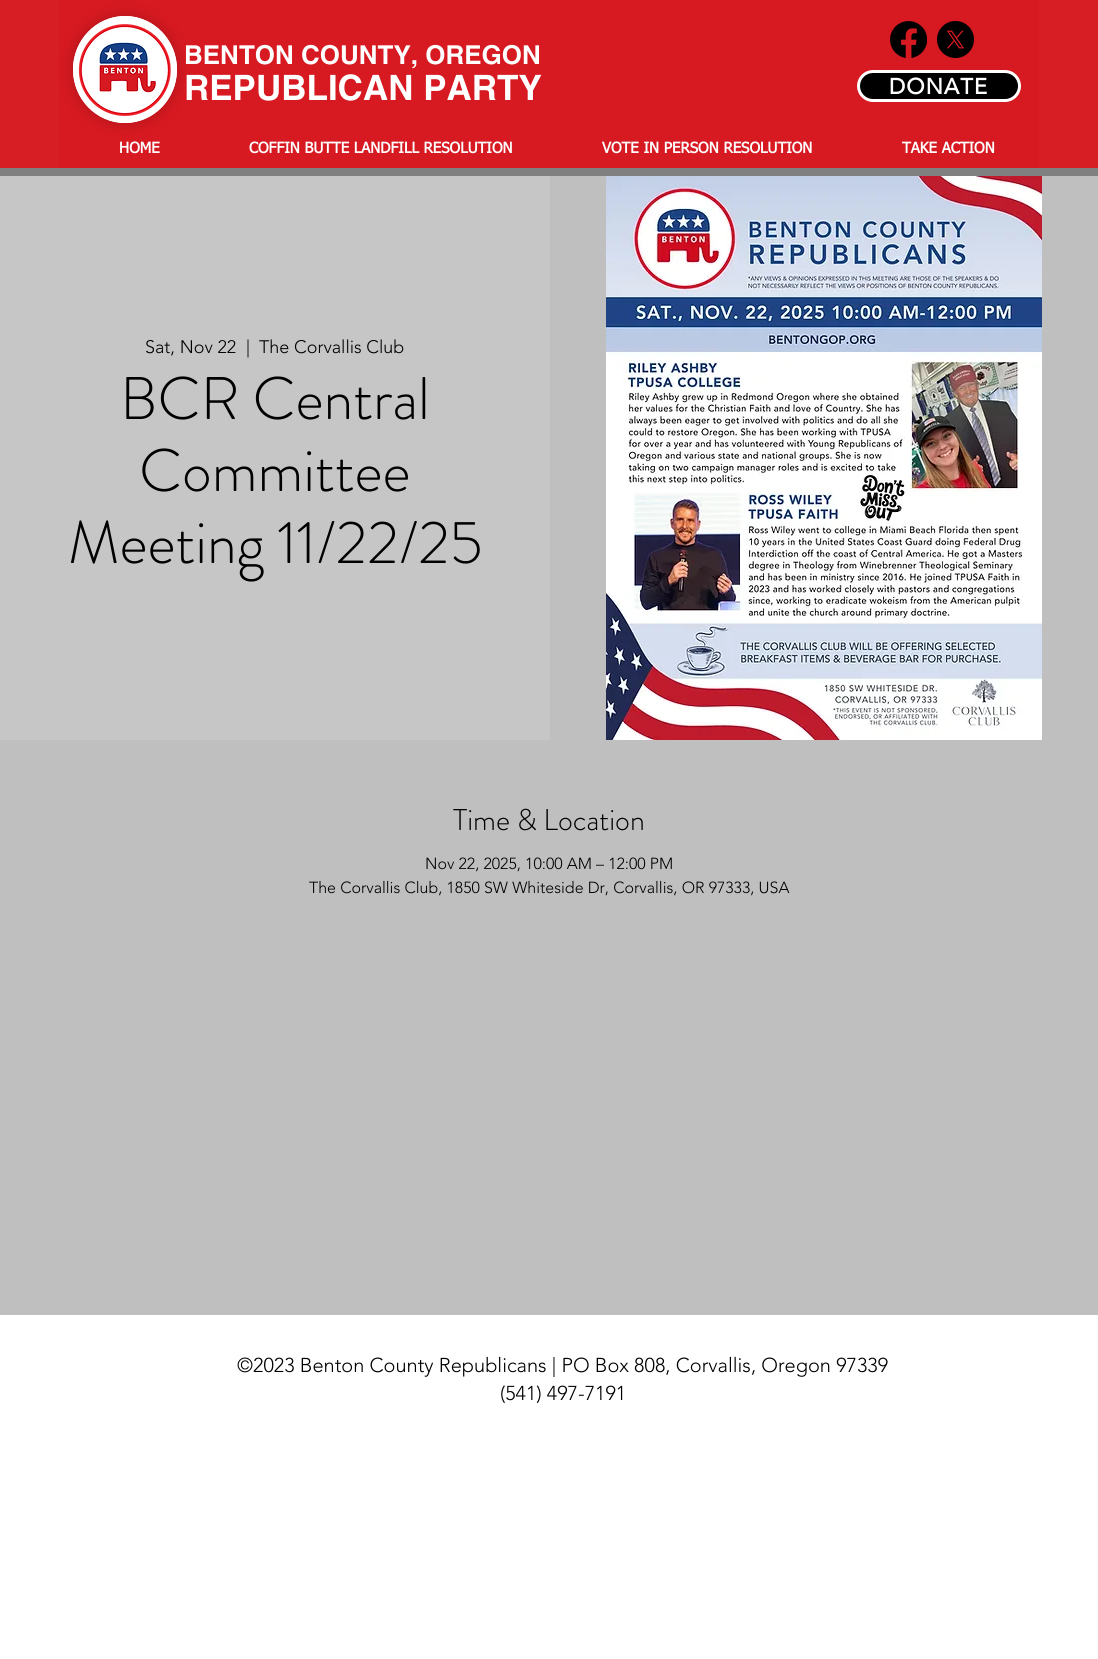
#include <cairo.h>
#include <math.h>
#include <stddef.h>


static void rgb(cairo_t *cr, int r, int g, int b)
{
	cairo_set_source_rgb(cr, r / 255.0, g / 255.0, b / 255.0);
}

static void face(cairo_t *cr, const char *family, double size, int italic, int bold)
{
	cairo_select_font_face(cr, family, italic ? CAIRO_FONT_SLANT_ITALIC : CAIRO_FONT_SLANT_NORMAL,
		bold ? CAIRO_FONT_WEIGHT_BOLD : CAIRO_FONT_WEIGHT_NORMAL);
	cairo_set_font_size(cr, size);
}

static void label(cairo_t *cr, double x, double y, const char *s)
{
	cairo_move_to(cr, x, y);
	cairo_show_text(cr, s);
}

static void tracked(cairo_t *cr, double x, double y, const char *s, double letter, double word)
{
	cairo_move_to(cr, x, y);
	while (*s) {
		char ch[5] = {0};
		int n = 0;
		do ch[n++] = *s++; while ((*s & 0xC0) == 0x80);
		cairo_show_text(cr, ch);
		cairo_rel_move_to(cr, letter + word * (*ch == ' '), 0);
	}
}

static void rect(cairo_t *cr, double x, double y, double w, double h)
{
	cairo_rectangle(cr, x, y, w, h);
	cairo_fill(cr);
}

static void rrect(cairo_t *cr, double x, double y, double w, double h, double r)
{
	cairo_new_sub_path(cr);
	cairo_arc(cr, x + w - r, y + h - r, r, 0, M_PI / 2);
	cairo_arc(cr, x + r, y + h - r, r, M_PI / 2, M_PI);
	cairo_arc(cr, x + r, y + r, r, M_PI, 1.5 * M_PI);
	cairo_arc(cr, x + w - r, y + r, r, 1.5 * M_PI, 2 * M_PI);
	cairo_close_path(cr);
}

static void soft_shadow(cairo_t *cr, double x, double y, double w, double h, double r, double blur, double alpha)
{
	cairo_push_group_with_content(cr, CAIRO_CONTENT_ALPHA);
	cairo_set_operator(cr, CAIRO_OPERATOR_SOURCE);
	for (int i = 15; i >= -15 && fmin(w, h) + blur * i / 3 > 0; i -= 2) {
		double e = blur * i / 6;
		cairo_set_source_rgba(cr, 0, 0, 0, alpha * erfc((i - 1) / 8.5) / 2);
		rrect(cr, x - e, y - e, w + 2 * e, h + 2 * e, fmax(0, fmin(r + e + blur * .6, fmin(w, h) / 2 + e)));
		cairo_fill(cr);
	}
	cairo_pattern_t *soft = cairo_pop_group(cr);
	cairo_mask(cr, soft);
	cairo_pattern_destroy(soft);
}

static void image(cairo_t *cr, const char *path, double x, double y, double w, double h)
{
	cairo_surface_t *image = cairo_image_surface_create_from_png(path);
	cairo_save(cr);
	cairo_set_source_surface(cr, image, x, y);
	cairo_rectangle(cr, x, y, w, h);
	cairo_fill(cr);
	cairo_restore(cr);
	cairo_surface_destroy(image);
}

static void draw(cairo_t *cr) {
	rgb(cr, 255, 255, 255);
	cairo_paint(cr);
	rgb(cr, 216, 30, 37);
	rect(cr, 0, 0, 1098, 168);
	rgb(cr, 215, 25, 33);
	rect(cr, 59, 0, 980, 168);
	rgb(cr, 0, 0, 0);
	soft_shadow(cr, 73, 16, 104, 107, 52, 7, 0.2);
	rgb(cr, 255, 255, 255);
	cairo_new_path(cr);
	cairo_move_to(cr, 125, 16);
	cairo_curve_to(cr, 153.5, 16, 177, 40, 177, 69.5);
	cairo_curve_to(cr, 177, 99, 153.5, 123, 125, 123);
	cairo_curve_to(cr, 96.5, 123, 73, 99, 73, 69.5);
	cairo_curve_to(cr, 73, 40, 96.5, 16, 125, 16);
	cairo_close_path(cr);
	cairo_fill(cr);
	cairo_new_path(cr);
	cairo_move_to(cr, 125, 18.5);
	cairo_curve_to(cr, 152.5, 18.5, 174.5, 41.5, 174.5, 69.5);
	cairo_curve_to(cr, 174.5, 97.5, 152.5, 120.5, 125, 120.5);
	cairo_curve_to(cr, 97.5, 120.5, 75.5, 97.5, 75.5, 69.5);
	cairo_curve_to(cr, 75.5, 41.5, 97.5, 18.5, 125, 18.5);
	cairo_close_path(cr);
	cairo_set_line_width(cr, 5);
	cairo_stroke(cr);
	image(cr, "image0.png", 78, 24, 93, 93);
	image(cr, "image1.png", 890, 21, 37, 37);
	image(cr, "image2.png", 937, 21, 37, 37);
	face(cr, "helvetica", 26, 0, 1);
	label(cr, 184, 64, "BENTON COUNTY, OREGON");
	face(cr, "helvetica", 35, 0, 1);
	label(cr, 184, 100, "REPUBLICAN PARTY");
	rgb(cr, 0, 0, 0);
	rrect(cr, 858.5, 71.5, 161, 29, 14.5);
	cairo_fill_preserve(cr);
	rgb(cr, 255, 255, 255);
	cairo_set_line_width(cr, 3);
	cairo_stroke(cr);
	face(cr, "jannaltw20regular", 22, 0, 1);
	tracked(cr, 889, 94, "DONATE", 1, 0);
	face(cr, "tahoma", 15, 0, 1);
	label(cr, 119, 153, "HOME");
	label(cr, 249, 153, "COFFIN BUTTE LANDFILL RESOLUTION");
	label(cr, 602, 153, "VOTE IN PERSON RESOLUTION");
	label(cr, 902, 153, "TAKE ACTION");
	rgb(cr, 128, 128, 128);
	rect(cr, 0, 168, 1098, 8);
	rgb(cr, 191, 191, 191);
	rect(cr, 0, 176, 1098, 1139);
	rgb(cr, 198, 198, 198);
	rect(cr, 0, 176, 550, 564);
	face(cr, "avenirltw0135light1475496 Light", 18, 0, 0);
	rgb(cr, 0, 0, 0);
	label(cr, 145, 353, "Sat, Nov 22");
	label(cr, 246, 353, "|");
	label(cr, 259, 353, "The Corvallis Club");
	face(cr, "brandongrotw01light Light", 60, 0, 0);
	label(cr, 120, 419, "BCR Central");
	label(cr, 139, 491, "Committee");
	label(cr, 68, 563, "Meeting 11/22/25");
	image(cr, "image3.png", 606, 176, 436, 564);
	face(cr, "brandongrotw01light Light", 30, 0, 0);
	label(cr, 453, 830, "Time & Location");
	face(cr, "avenirltw0135light1475496 Light", 16, 0, 0);
	label(cr, 425, 869, "Nov 22, 2025, 10:00 AM – 12:00 PM");
	label(cr, 309, 893, "The Corvallis Club, 1850 SW Whiteside Dr, Corvallis, OR 97333, USA");
	face(cr, "avenirltw0135light1475496 Light", 20, 0, 0);
	label(cr, 237, 1372, "©2023 Benton County Republicans | PO Box 808, Corvallis, Oregon 97339");
	label(cr, 500, 1400, "(541) 497-7191");
}

int main(void) {
	cairo_surface_t *surface = cairo_image_surface_create(CAIRO_FORMAT_RGB24, 1098, 1659);
	cairo_t *cr = cairo_create(surface);
	cairo_font_options_t *options = cairo_font_options_create();
	cairo_font_options_set_hint_metrics(options, CAIRO_HINT_METRICS_OFF);
	cairo_font_options_set_hint_style(options, CAIRO_HINT_STYLE_NONE);
	cairo_set_font_options(cr, options);
	cairo_set_miter_limit(cr, 4);
	draw(cr);
	cairo_surface_write_to_png(surface, "render.png");
	cairo_font_options_destroy(options);
	cairo_destroy(cr);
	cairo_surface_destroy(surface);
	return 0;
}
